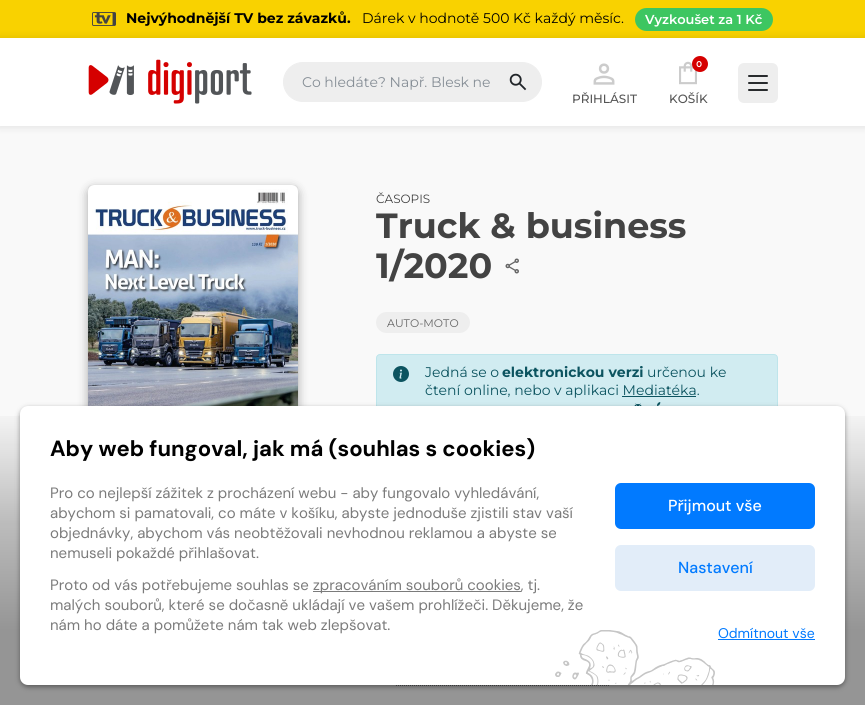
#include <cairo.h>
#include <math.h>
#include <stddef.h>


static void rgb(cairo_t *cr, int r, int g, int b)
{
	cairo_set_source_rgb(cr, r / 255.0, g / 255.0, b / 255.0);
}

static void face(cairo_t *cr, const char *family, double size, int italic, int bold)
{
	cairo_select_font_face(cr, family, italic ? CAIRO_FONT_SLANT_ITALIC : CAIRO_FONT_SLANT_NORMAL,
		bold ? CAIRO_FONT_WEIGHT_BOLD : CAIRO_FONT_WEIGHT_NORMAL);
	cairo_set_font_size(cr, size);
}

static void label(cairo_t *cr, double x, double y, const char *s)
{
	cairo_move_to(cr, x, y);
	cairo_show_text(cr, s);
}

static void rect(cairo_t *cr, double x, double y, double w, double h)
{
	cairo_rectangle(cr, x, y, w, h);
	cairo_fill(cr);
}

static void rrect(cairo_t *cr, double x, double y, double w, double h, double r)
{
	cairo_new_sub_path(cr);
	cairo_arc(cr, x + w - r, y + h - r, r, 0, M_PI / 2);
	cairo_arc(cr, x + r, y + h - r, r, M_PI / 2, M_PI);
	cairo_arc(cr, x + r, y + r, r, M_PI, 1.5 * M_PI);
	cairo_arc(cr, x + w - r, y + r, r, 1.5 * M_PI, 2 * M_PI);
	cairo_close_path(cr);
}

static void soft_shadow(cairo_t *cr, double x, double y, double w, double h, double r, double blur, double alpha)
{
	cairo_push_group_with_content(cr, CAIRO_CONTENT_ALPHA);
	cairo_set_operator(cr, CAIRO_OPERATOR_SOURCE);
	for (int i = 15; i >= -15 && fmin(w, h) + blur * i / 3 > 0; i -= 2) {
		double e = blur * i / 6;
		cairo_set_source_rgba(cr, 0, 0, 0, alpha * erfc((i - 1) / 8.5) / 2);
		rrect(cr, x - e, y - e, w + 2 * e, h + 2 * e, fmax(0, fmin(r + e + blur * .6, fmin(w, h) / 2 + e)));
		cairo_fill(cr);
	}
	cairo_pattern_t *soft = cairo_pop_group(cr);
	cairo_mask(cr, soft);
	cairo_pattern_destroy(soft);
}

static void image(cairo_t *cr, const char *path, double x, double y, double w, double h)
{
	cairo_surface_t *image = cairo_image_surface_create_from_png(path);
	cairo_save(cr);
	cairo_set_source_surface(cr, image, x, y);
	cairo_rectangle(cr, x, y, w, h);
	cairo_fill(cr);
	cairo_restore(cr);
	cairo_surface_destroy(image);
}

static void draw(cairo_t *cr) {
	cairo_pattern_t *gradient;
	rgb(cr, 249, 210, 0);
	cairo_paint(cr);
	image(cr, "image0.png", 92, 12, 24, 14);
	face(cr, "Montserrat", 14, 0, 1);
	rgb(cr, 0, 0, 0);
	label(cr, 126, 23, "Nejvýhodnější TV bez závazků.");
	face(cr, "Montserrat", 14, 0, 0);
	label(cr, 362, 23, "Dárek v hodnotě 500 Kč každý měsíc.");
	rgb(cr, 61, 198, 97);
	rrect(cr, 635, 8, 138, 23, 11.5);
	cairo_fill(cr);
	face(cr, "Montserrat SemiBold", 13, 0, 0);
	rgb(cr, 255, 255, 255);
	label(cr, 645, 24, "Vyzkoušet za 1 Kč");
	rgb(cr, 249, 249, 249);
	rect(cr, 0, 126, 865, 579);
	rgb(cr, 0, 0, 0);
	soft_shadow(cr, -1, 37, 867, 90, 0, 4, 0.1);
	rgb(cr, 255, 255, 255);
	rect(cr, 0, 38, 865, 88);
	image(cr, "image1.png", 88, 59, 164, 45);
	rgb(cr, 238, 238, 238);
	rrect(cr, 283.5, 62.5, 258, 39, 19.5);
	cairo_fill_preserve(cr);
	cairo_set_line_width(cr, 1);
	cairo_stroke(cr);
	face(cr, "Montserrat", 14, 0, 0);
	rgb(cr, 134, 142, 150);
	label(cr, 302, 87, "Co hledáte? Např. Blesk ne");
	image(cr, "image2.png", 509, 73, 18, 18);
	image(cr, "image3.png", 593, 63, 22, 22);
	face(cr, "Montserrat Medium", 12, 0, 0);
	rgb(cr, 85, 85, 85);
	label(cr, 572, 103, "PŘIHLÁSIT");
	image(cr, "image4.png", 679, 61, 18, 24);
	rgb(cr, 213, 0, 0);
	cairo_arc(cr, 700, 64, 8, 0, 2 * M_PI);
	cairo_fill(cr);
	face(cr, "Raleway SemiBold", 10, 0, 0);
	rgb(cr, 255, 255, 255);
	label(cr, 696, 67, "0");
	face(cr, "Montserrat Medium", 12, 0, 0);
	rgb(cr, 85, 85, 85);
	label(cr, 669, 103, "KOŠÍK");
	rgb(cr, 238, 238, 238);
	rrect(cr, 738, 63, 40, 40, 6);
	cairo_fill(cr);
	rgb(cr, 40, 43, 45);
	rrect(cr, 748, 75, 20, 2, 1);
	cairo_fill(cr);
	rrect(cr, 748, 82, 20, 2, 1);
	cairo_fill(cr);
	rrect(cr, 748, 89, 20, 2, 1);
	cairo_fill(cr);
	rgb(cr, 238, 238, 238);
	rrect(cr, 88, 185, 210, 272, 3);
	cairo_fill(cr);
	rgb(cr, 0, 0, 0);
	soft_shadow(cr, 88, 188, 210, 272, 6, 5, 0.33);
	image(cr, "image5.png", 88, 185, 210, 221);
	face(cr, "Montserrat", 12, 0, 0);
	rgb(cr, 67, 67, 67);
	label(cr, 376, 203, "ČASOPIS");
	face(cr, "Montserrat", 35, 0, 1);
	label(cr, 376, 238, "Truck & business");
	label(cr, 376, 278, "1/2020");
	image(cr, "image6.png", 505, 258, 14, 16);
	rgb(cr, 238, 238, 238);
	rrect(cr, 376, 312, 94, 21, 10.5);
	cairo_fill(cr);
	face(cr, "Montserrat", 11, 0, 0);
	rgb(cr, 102, 102, 102);
	label(cr, 387, 327, "AUTO-MOTO");
	rgb(cr, 209, 236, 241);
	rrect(cr, 376.5, 354.5, 401, 72, 3.5);
	cairo_fill_preserve(cr);
	rgb(cr, 190, 229, 235);
	cairo_stroke(cr);
	image(cr, "image7.png", 393, 366, 16, 16);
	face(cr, "Montserrat", 14, 0, 0);
	rgb(cr, 12, 84, 96);
	label(cr, 425, 377, "Jedná se o");
	face(cr, "Montserrat", 14, 0, 1);
	label(cr, 502, 377, "elektronickou verzi");
	face(cr, "Montserrat", 14, 0, 0);
	label(cr, 647, 377, "určenou ke");
	label(cr, 425, 395, "čtení online, nebo v aplikaci Mediatéka.");
	rect(cr, 622, 396, 74, 1);
	image(cr, "image8.png", 634, 403, 8, 3);
	image(cr, "image9.png", 657, 402, 4, 4);
	cairo_new_path(cr);
	cairo_move_to(cr, 396, 685.5);
	cairo_line_to(cr, 609, 685.5);
	rgb(cr, 131, 134, 136);
	cairo_set_dash(cr, (double[]){1, 1}, 2, 0);
	cairo_stroke(cr);
	gradient = cairo_pattern_create_linear(433, 406, 433, 705);
	cairo_pattern_add_color_stop_rgba(gradient, 0, 0, 0, 0, 0);
	cairo_pattern_add_color_stop_rgba(gradient, 0.4, 0, 0, 0, 0.25);
	cairo_pattern_add_color_stop_rgba(gradient, 0.75, 0, 0, 0, 0.4);
	cairo_set_source(cr, gradient);
	cairo_pattern_destroy(gradient);
	rect(cr, 0, 416, 865, 289);
	rgb(cr, 0, 0, 0);
	soft_shadow(cr, 20, 408, 825, 279, 8, 2.5, 0.4);
	rgb(cr, 255, 255, 255);
	rrect(cr, 20, 406, 825, 279, 8);
	cairo_fill(cr);
	face(cr, "DM Sans", 22, 0, 1);
	rgb(cr, 0, 0, 0);
	label(cr, 50, 456, "Aby web fungoval, jak má (souhlas s cookies)");
	face(cr, "DM Sans", 15, 0, 0);
	rgb(cr, 123, 123, 123);
	label(cr, 50, 498, "Pro co nejlepší zážitek z procházení webu - aby fungovalo vyhledávání,");
	label(cr, 50, 518, "abychom si pamatovali, co máte v košíku, abyste jednoduše zjistili stav vaší");
	label(cr, 50, 538, "objednávky, abychom vás neobtěžovali nevhodnou reklamou a abyste se");
	label(cr, 50, 558, "nemuseli pokaždé přihlašovat.");
	label(cr, 50, 590, "Proto od vás potřebujeme souhlas se");
	rect(cr, 313, 591, 208, 1);
	label(cr, 313, 590, "zpracováním souborů cookies, tj.");
	label(cr, 50, 610, "malých souborů, které se dočasně ukládají ve vašem prohlížeči. Děkujeme, že");
	label(cr, 50, 630, "nám ho dáte a pomůžete nám tak web zlepšovat.");
	rgb(cr, 1, 122, 255);
	rrect(cr, 615, 483, 200, 46, 6);
	cairo_fill(cr);
	face(cr, "DM Sans Medium", 16, 0, 0);
	rgb(cr, 255, 255, 255);
	label(cr, 668, 511, "Přijmout vše");
	rgb(cr, 226, 237, 249);
	rrect(cr, 615, 545, 200, 46, 6);
	cairo_fill(cr);
	rgb(cr, 1, 122, 255);
	label(cr, 678, 573, "Nastavení");
	face(cr, "DM Sans", 14, 0, 0);
	label(cr, 718, 638, "Odmítnout vše");
	rect(cr, 718, 639, 97, 1);
	image(cr, "image10.png", 555, 630, 160, 55);
}

int main(void) {
	cairo_surface_t *surface = cairo_image_surface_create(CAIRO_FORMAT_RGB24, 865, 705);
	cairo_t *cr = cairo_create(surface);
	cairo_font_options_t *options = cairo_font_options_create();
	cairo_font_options_set_hint_metrics(options, CAIRO_HINT_METRICS_OFF);
	cairo_font_options_set_hint_style(options, CAIRO_HINT_STYLE_NONE);
	cairo_set_font_options(cr, options);
	cairo_set_miter_limit(cr, 4);
	draw(cr);
	cairo_surface_write_to_png(surface, "render.png");
	cairo_font_options_destroy(options);
	cairo_destroy(cr);
	cairo_surface_destroy(surface);
	return 0;
}
